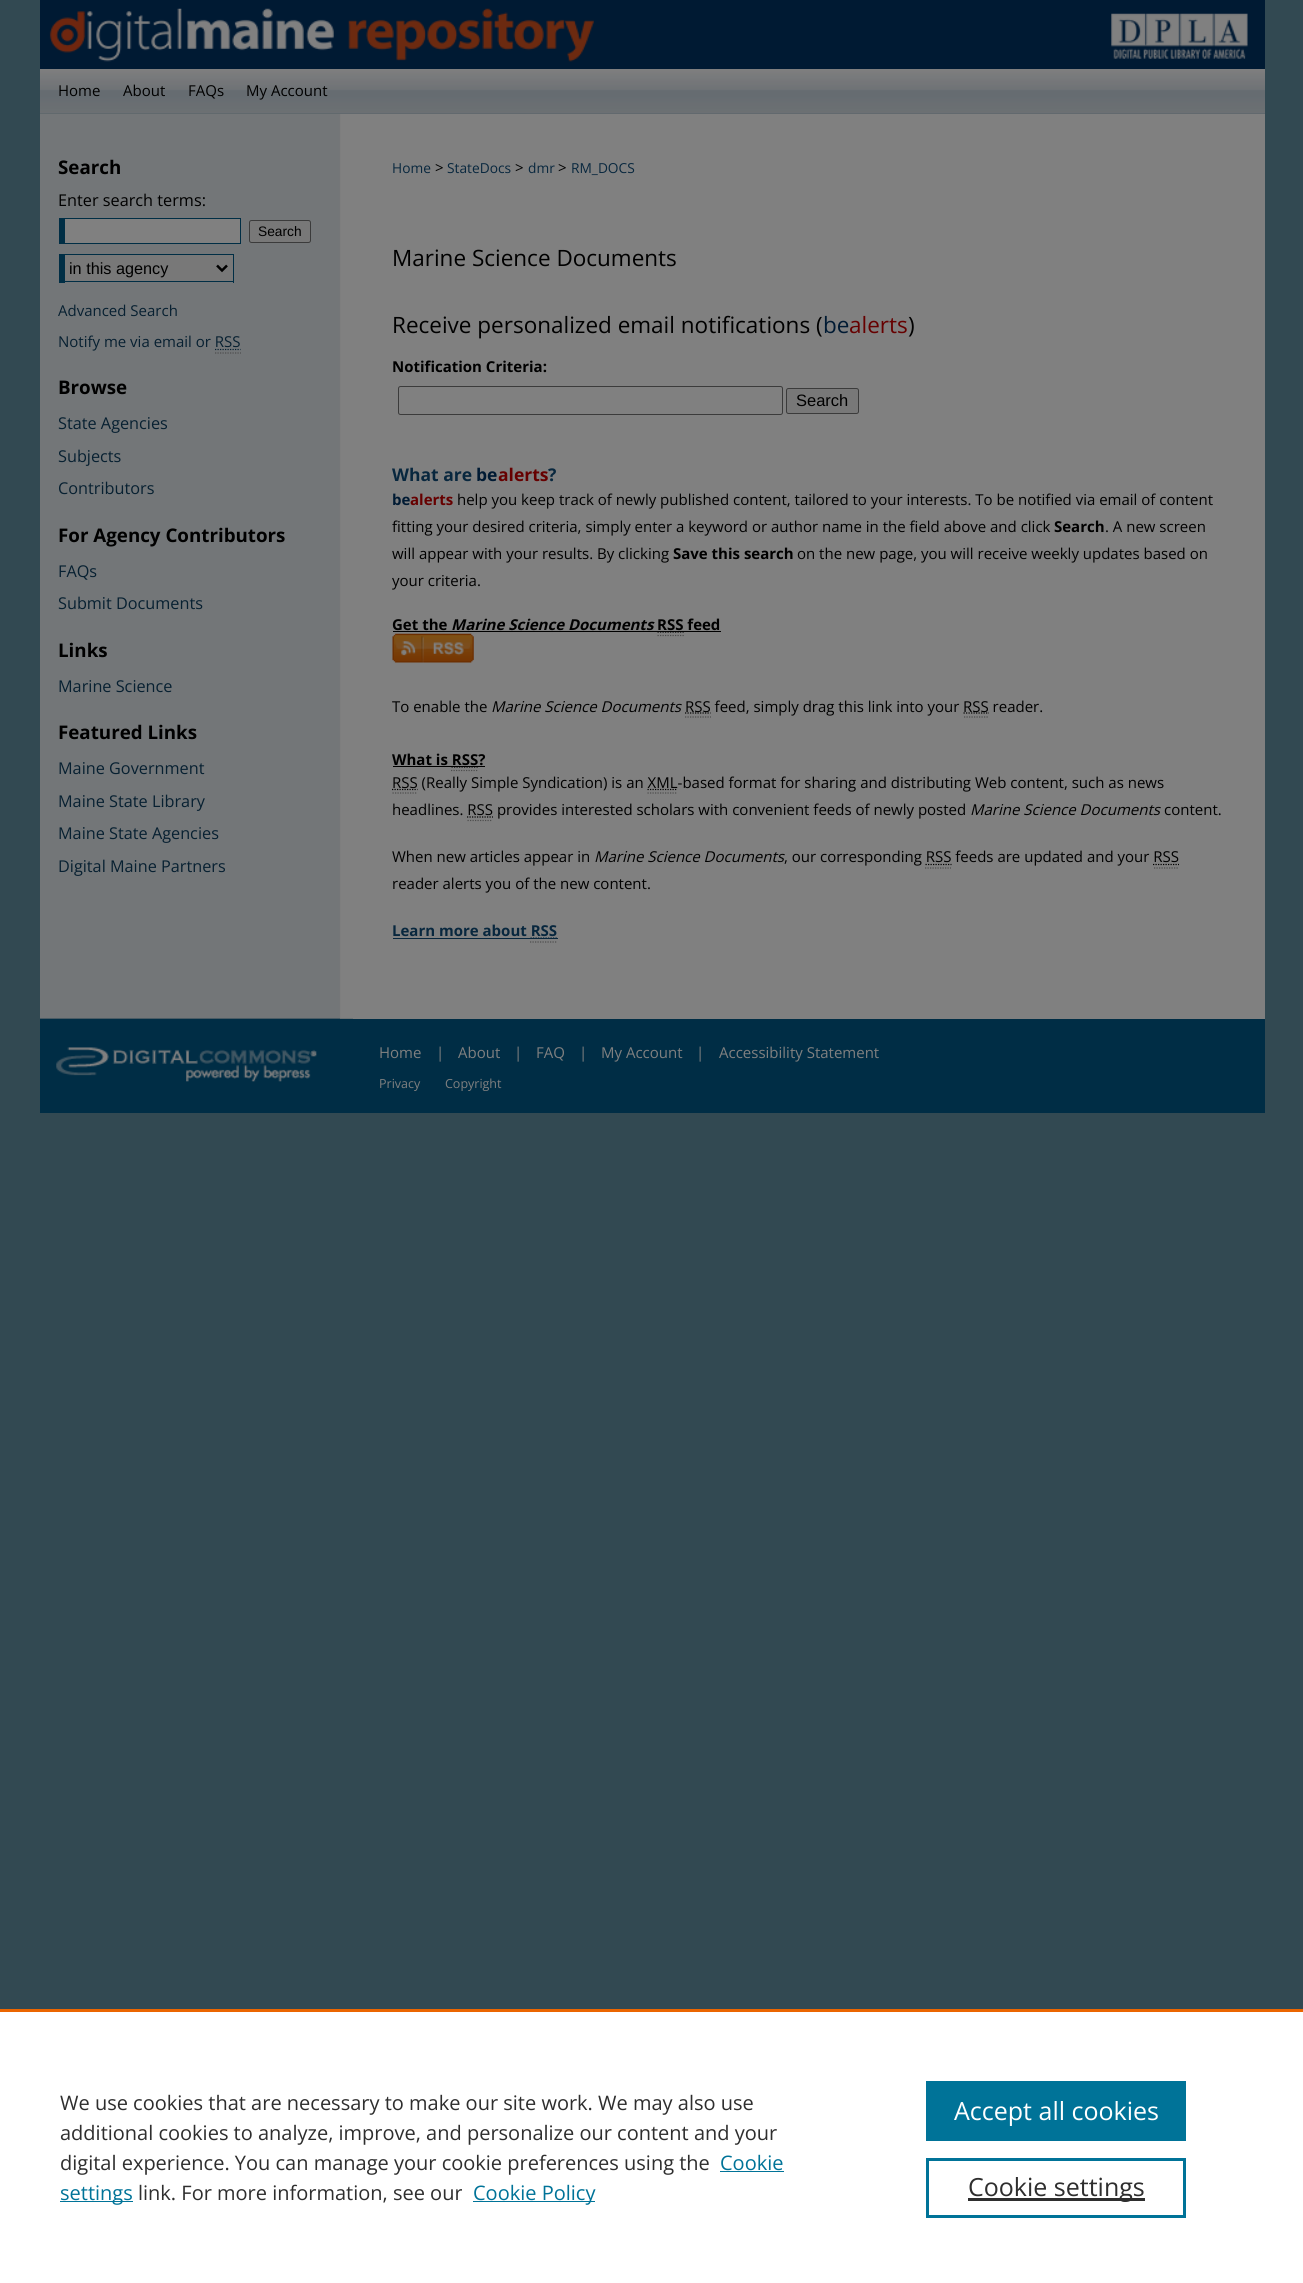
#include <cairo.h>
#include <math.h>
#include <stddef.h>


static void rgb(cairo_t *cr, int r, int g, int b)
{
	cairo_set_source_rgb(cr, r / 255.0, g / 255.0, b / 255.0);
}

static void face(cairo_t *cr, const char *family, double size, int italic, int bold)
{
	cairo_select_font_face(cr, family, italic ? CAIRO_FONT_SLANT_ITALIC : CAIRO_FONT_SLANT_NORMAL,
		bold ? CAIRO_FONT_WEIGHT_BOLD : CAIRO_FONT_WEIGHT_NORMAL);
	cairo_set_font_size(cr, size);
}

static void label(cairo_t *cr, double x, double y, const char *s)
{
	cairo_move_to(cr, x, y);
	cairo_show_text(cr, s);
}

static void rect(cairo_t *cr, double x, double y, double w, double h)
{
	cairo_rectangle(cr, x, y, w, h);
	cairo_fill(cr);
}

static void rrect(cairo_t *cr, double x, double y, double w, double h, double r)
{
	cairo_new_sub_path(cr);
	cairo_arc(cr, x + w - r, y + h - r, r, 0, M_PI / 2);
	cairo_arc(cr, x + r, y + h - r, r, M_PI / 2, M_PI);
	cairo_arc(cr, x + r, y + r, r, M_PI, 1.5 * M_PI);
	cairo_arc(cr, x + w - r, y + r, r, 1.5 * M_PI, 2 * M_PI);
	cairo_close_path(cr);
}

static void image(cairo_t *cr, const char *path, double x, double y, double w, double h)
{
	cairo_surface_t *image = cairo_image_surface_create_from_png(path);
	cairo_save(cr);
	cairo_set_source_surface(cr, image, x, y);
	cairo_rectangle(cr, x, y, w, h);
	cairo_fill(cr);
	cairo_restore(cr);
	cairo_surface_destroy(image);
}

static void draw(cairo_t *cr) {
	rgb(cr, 50, 73, 82);
	cairo_paint(cr);
	rgb(cr, 0, 26, 51);
	rect(cr, 40, 0, 1225, 69);
	image(cr, "image0.png", 49, 8, 1199, 54);
	image(cr, "image1.png", 1117, 14, 131, 45);
	image(cr, "image3.png", 40, 113, 1225, 906);
	image(cr, "image2.png", 40, 69, 1225, 45);
	face(cr, "Open Sans", 15, 0, 0);
	rgb(cr, 0, 0, 0);
	label(cr, 58, 96, "Home");
	label(cr, 123, 96, "About");
	label(cr, 188, 96, "FAQs");
	label(cr, 246, 96, "My Account");
	face(cr, "Open Sans", 18.75, 0, 1);
	label(cr, 58, 174, "Search");
	face(cr, "Open Sans", 16.25, 0, 0);
	label(cr, 58, 206, "Enter search terms:");
	rgb(cr, 128, 128, 128);
	rect(cr, 65, 219, 175, 24);
	rgb(cr, 0, 46, 69);
	rect(cr, 59, 218, 182, 1);
	rect(cr, 240, 218, 1, 26);
	rect(cr, 59, 243, 182, 1);
	rect(cr, 59, 218, 6, 26);
	rgb(cr, 120, 120, 120);
	rrect(cr, 249.5, 220.5, 61, 22, 2);
	cairo_fill_preserve(cr);
	rgb(cr, 59, 59, 59);
	cairo_set_line_width(cr, 1);
	cairo_stroke(cr);
	face(cr, "Liberation Sans", 13.75, 0, 0);
	rgb(cr, 0, 0, 0);
	label(cr, 258, 236, "Search");
	rgb(cr, 120, 120, 120);
	rect(cr, 65, 255, 168, 26);
	rgb(cr, 0, 46, 69);
	rect(cr, 59, 254, 175, 1);
	rect(cr, 233, 254, 1, 29);
	rect(cr, 59, 281, 175, 1);
	rect(cr, 59, 254, 6, 29);
	cairo_new_path(cr);
	cairo_move_to(cr, 217, 265.5);
	cairo_line_to(cr, 222, 270.5);
	cairo_line_to(cr, 227, 265.5);
	rgb(cr, 0, 0, 0);
	cairo_set_line_width(cr, 2.5);
	cairo_stroke(cr);
	face(cr, "Liberation Sans", 16.25, 0, 0);
	label(cr, 69, 274, "in this agency");
	face(cr, "Open Sans", 15, 0, 0);
	rgb(cr, 7, 32, 49);
	label(cr, 58, 316, "Advanced Search");
	label(cr, 58, 347, "Notify me via email or RSS");
	cairo_new_path(cr);
	cairo_move_to(cr, 215, 349.5);
	cairo_line_to(cr, 240.5, 349.5);
	cairo_set_line_width(cr, 1.2);
	cairo_set_dash(cr, (double[]){1.25, 1.25}, 2, 0);
	cairo_stroke(cr);
	cairo_new_path(cr);
	cairo_move_to(cr, 215, 353);
	cairo_line_to(cr, 241, 353);
	rgb(cr, 77, 77, 77);
	cairo_stroke(cr);
	face(cr, "Open Sans", 18.75, 0, 1);
	rgb(cr, 0, 0, 0);
	label(cr, 58, 394, "Browse");
	face(cr, "Open Sans", 16.25, 0, 0);
	rgb(cr, 7, 32, 49);
	label(cr, 58, 429, "State Agencies");
	label(cr, 58, 462, "Subjects");
	label(cr, 58, 494, "Contributors");
	face(cr, "Open Sans", 18.75, 0, 1);
	rgb(cr, 0, 0, 0);
	label(cr, 58, 542, "For Agency Contributors");
	face(cr, "Open Sans", 16.25, 0, 0);
	rgb(cr, 7, 32, 49);
	label(cr, 58, 577, "FAQs");
	label(cr, 58, 609, "Submit Documents");
	face(cr, "Open Sans", 18.75, 0, 1);
	rgb(cr, 0, 0, 0);
	label(cr, 58, 657, "Links");
	face(cr, "Open Sans", 16.25, 0, 0);
	rgb(cr, 7, 32, 49);
	label(cr, 58, 692, "Marine Science");
	face(cr, "Open Sans", 18.75, 0, 1);
	rgb(cr, 0, 0, 0);
	label(cr, 58, 739, "Featured Links");
	face(cr, "Open Sans", 16.25, 0, 0);
	rgb(cr, 7, 32, 49);
	label(cr, 58, 774, "Maine Government");
	label(cr, 58, 807, "Maine State Library");
	label(cr, 58, 839, "Maine State Agencies");
	label(cr, 58, 872, "Digital Maine Partners");
	rgb(cr, 128, 128, 128);
	rect(cr, 353, 1018, 912, 1);
	face(cr, "Open Sans", 13.75, 0, 0);
	rgb(cr, 8, 39, 62);
	label(cr, 392, 173, "Home");
	face(cr, "Open Sans", 15, 0, 0);
	rgb(cr, 0, 0, 0);
	label(cr, 435, 173, ">");
	face(cr, "Open Sans", 13.75, 0, 0);
	rgb(cr, 8, 39, 62);
	label(cr, 447, 173, "StateDocs");
	face(cr, "Open Sans", 15, 0, 0);
	rgb(cr, 0, 0, 0);
	label(cr, 515, 173, ">");
	face(cr, "Open Sans", 13.75, 0, 0);
	rgb(cr, 8, 39, 62);
	label(cr, 528, 173, "dmr");
	face(cr, "Open Sans", 15, 0, 0);
	rgb(cr, 0, 0, 0);
	label(cr, 558, 173, ">");
	face(cr, "Open Sans", 13.75, 0, 0);
	rgb(cr, 8, 39, 62);
	label(cr, 571, 173, "RM_DOCS");
	face(cr, "Open Sans", 22.5, 0, 0);
	rgb(cr, 0, 0, 0);
	label(cr, 392, 266, "Marine Science Documents");
	label(cr, 392, 333, "Receive personalized email notifications (");
	rgb(cr, 0, 26, 51);
	label(cr, 823, 333, "be");
	rgb(cr, 102, 0, 0);
	label(cr, 849, 333, "alerts");
	rgb(cr, 0, 0, 0);
	label(cr, 908, 333, ")");
	face(cr, "Open Sans", 15, 0, 1);
	label(cr, 392, 372, "Notification Criteria:");
	rrect(cr, 398.5, 386.5, 384, 28, 2);
	rgb(cr, 59, 59, 59);
	cairo_set_line_width(cr, 1);
	cairo_set_dash(cr, NULL, 0, 0);
	cairo_stroke(cr);
	rgb(cr, 120, 120, 120);
	rrect(cr, 786.5, 388.5, 72, 25, 2);
	cairo_fill_preserve(cr);
	rgb(cr, 59, 59, 59);
	cairo_stroke(cr);
	face(cr, "Liberation Sans", 16.5, 0, 0);
	rgb(cr, 0, 0, 0);
	label(cr, 796, 406, "Search");
	face(cr, "Open Sans", 17.5, 0, 1);
	rgb(cr, 8, 39, 62);
	label(cr, 392, 481, "What are");
	rgb(cr, 0, 26, 51);
	label(cr, 476, 481, "be");
	rgb(cr, 102, 0, 0);
	label(cr, 498, 481, "alerts");
	rgb(cr, 8, 39, 62);
	label(cr, 548, 481, "?");
	face(cr, "Open Sans", 15, 0, 1);
	rgb(cr, 0, 26, 51);
	label(cr, 392, 505, "be");
	rgb(cr, 102, 0, 0);
	label(cr, 410, 505, "alerts");
	face(cr, "Open Sans", 15, 0, 0);
	rgb(cr, 0, 0, 0);
	label(cr, 457, 505, "help you keep track of newly published content, tailored to your interests. To be notified via email of content");
	label(cr, 392, 532, "fitting your desired criteria, simply enter a keyword or author name in the field above and click");
	face(cr, "Open Sans", 15, 0, 1);
	label(cr, 1054, 532, "Search");
	face(cr, "Open Sans", 15, 0, 0);
	label(cr, 1105, 532, ". A new screen");
	label(cr, 392, 559, "will appear with your results. By clicking");
	face(cr, "Open Sans", 15, 0, 1);
	label(cr, 673, 559, "Save this search");
	face(cr, "Open Sans", 15, 0, 0);
	label(cr, 797, 559, "on the new page, you will receive weekly updates based on");
	label(cr, 392, 586, "your criteria.");
	face(cr, "Open Sans", 15, 0, 1);
	label(cr, 392, 630, "Get the");
	rect(cr, 393, 631, 265, 1);
	face(cr, "Open Sans", 15, 1, 1);
	label(cr, 451, 630, "Marine Science Documents");
	face(cr, "Open Sans", 15, 0, 1);
	label(cr, 657, 630, "RSS feed");
	cairo_new_path(cr);
	cairo_move_to(cr, 657.5, 635.5);
	cairo_line_to(cr, 684, 635.5);
	rgb(cr, 77, 77, 77);
	cairo_set_line_width(cr, 1.2);
	cairo_set_dash(cr, (double[]){1.25, 1.25}, 2, 0);
	cairo_stroke(cr);
	cairo_new_path(cr);
	cairo_move_to(cr, 657.5, 632);
	cairo_line_to(cr, 684, 632);
	rgb(cr, 0, 0, 0);
	cairo_stroke(cr);
	rect(cr, 658, 631, 63, 1);
	image(cr, "image4.png", 392, 633, 82, 30);
	face(cr, "Open Sans", 15, 0, 0);
	label(cr, 392, 712, "To enable the");
	face(cr, "Open Sans", 15, 1, 0);
	label(cr, 491, 712, "Marine Science Documents");
	cairo_new_path(cr);
	cairo_move_to(cr, 685, 713);
	cairo_line_to(cr, 710.5, 713);
	cairo_stroke(cr);
	face(cr, "Open Sans", 15, 0, 0);
	label(cr, 685, 712, "RSS feed, simply drag this link into your");
	cairo_new_path(cr);
	cairo_move_to(cr, 685, 717);
	cairo_line_to(cr, 711, 717);
	rgb(cr, 77, 77, 77);
	cairo_stroke(cr);
	cairo_new_path(cr);
	cairo_move_to(cr, 963.5, 713);
	cairo_line_to(cr, 989, 713);
	rgb(cr, 0, 0, 0);
	cairo_stroke(cr);
	label(cr, 963, 712, "RSS reader.");
	cairo_new_path(cr);
	cairo_move_to(cr, 964, 717);
	cairo_line_to(cr, 989, 717);
	rgb(cr, 77, 77, 77);
	cairo_stroke(cr);
	face(cr, "Open Sans", 15, 0, 1);
	rgb(cr, 0, 0, 0);
	label(cr, 392, 765, "What is RSS?");
	rect(cr, 393, 766, 58, 1);
	cairo_new_path(cr);
	cairo_move_to(cr, 451.5, 767);
	cairo_line_to(cr, 478, 767);
	cairo_stroke(cr);
	rect(cr, 451, 766, 34, 1);
	cairo_new_path(cr);
	cairo_move_to(cr, 451, 770.5);
	cairo_line_to(cr, 477.5, 770.5);
	rgb(cr, 77, 77, 77);
	cairo_stroke(cr);
	cairo_new_path(cr);
	cairo_move_to(cr, 392, 789.5);
	cairo_line_to(cr, 417.5, 789.5);
	rgb(cr, 0, 0, 0);
	cairo_stroke(cr);
	face(cr, "Open Sans", 15, 0, 0);
	label(cr, 392, 788, "RSS (Really Simple Syndication) is an XML-based format for sharing and distributing Web content, such as news");
	cairo_new_path(cr);
	cairo_move_to(cr, 392.5, 793);
	cairo_line_to(cr, 417.5, 793);
	rgb(cr, 77, 77, 77);
	cairo_stroke(cr);
	cairo_new_path(cr);
	cairo_move_to(cr, 647.5, 789.5);
	cairo_line_to(cr, 677.5, 789.5);
	rgb(cr, 0, 0, 0);
	cairo_stroke(cr);
	cairo_new_path(cr);
	cairo_move_to(cr, 647.5, 793);
	cairo_line_to(cr, 677.5, 793);
	rgb(cr, 77, 77, 77);
	cairo_stroke(cr);
	rgb(cr, 0, 0, 0);
	label(cr, 392, 815, "headlines. RSS provides interested scholars with convenient feeds of newly posted");
	face(cr, "Open Sans", 15, 1, 0);
	label(cr, 970, 815, "Marine Science Documents");
	face(cr, "Open Sans", 15, 0, 0);
	label(cr, 1164, 815, "content.");
	cairo_new_path(cr);
	cairo_move_to(cr, 467, 817);
	cairo_line_to(cr, 493, 817);
	cairo_stroke(cr);
	cairo_new_path(cr);
	cairo_move_to(cr, 467.5, 820.5);
	cairo_line_to(cr, 492.5, 820.5);
	rgb(cr, 77, 77, 77);
	cairo_stroke(cr);
	rgb(cr, 0, 0, 0);
	label(cr, 392, 862, "When new articles appear in");
	face(cr, "Open Sans", 15, 1, 0);
	label(cr, 594, 862, "Marine Science Documents");
	face(cr, "Open Sans", 15, 0, 0);
	label(cr, 784, 862, ", our corresponding RSS feeds are updated and your RSS");
	cairo_new_path(cr);
	cairo_move_to(cr, 925.5, 864.5);
	cairo_line_to(cr, 951.5, 864.5);
	cairo_stroke(cr);
	cairo_new_path(cr);
	cairo_move_to(cr, 1153, 864.5);
	cairo_line_to(cr, 1179, 864.5);
	cairo_stroke(cr);
	cairo_new_path(cr);
	cairo_move_to(cr, 925, 868);
	cairo_line_to(cr, 951, 868);
	rgb(cr, 77, 77, 77);
	cairo_stroke(cr);
	cairo_new_path(cr);
	cairo_move_to(cr, 1154, 868);
	cairo_line_to(cr, 1179, 868);
	cairo_stroke(cr);
	rgb(cr, 0, 0, 0);
	label(cr, 392, 889, "reader alerts you of the new content.");
	face(cr, "Open Sans", 15, 0, 1);
	rgb(cr, 8, 39, 62);
	label(cr, 392, 936, "Learn more about RSS");
	rect(cr, 393, 938, 137, 1);
	cairo_new_path(cr);
	cairo_move_to(cr, 530, 942);
	cairo_line_to(cr, 557.5, 942);
	rgb(cr, 77, 77, 77);
	cairo_stroke(cr);
	cairo_new_path(cr);
	cairo_move_to(cr, 530.5, 938);
	cairo_line_to(cr, 557, 938);
	rgb(cr, 8, 39, 62);
	cairo_stroke(cr);
	rect(cr, 530, 938, 28, 1);
	rgb(cr, 0, 45, 69);
	rect(cr, 40, 1019, 1225, 94);
	image(cr, "image5.png", 40, 1018, 300, 64);
	face(cr, "Open Sans", 15, 0, 0);
	rgb(cr, 128, 128, 128);
	label(cr, 379, 1058, "Home");
	label(cr, 436, 1058, "|");
	label(cr, 458, 1058, "About");
	label(cr, 514, 1058, "|");
	label(cr, 536, 1058, "FAQ");
	label(cr, 579, 1058, "|");
	label(cr, 601, 1058, "My Account");
	label(cr, 696, 1058, "|");
	label(cr, 719, 1058, "Accessibility Statement");
	face(cr, "Open Sans", 12.5, 0, 0);
	label(cr, 379, 1088, "Privacy");
	label(cr, 445, 1088, "Copyright");
	rgb(cr, 255, 255, 255);
	rect(cr, 0, 2012, 1303, 271);
	rgb(cr, 235, 101, 0);
	rect(cr, 0, 2009, 1303, 3);
	face(cr, "Open Sans", 20, 0, 0);
	rgb(cr, 46, 46, 46);
	label(cr, 60, 2110, "We use cookies that are necessary to make our site work. We may also use");
	label(cr, 60, 2140, "additional cookies to analyze, improve, and personalize our content and your");
	label(cr, 60, 2170, "digital experience. You can manage your cookie preferences using the");
	rgb(cr, 0, 115, 152);
	label(cr, 720, 2170, "Cookie");
	rect(cr, 720, 2171, 64, 1);
	rect(cr, 60, 2201, 73, 1);
	label(cr, 60, 2200, "settings");
	rgb(cr, 46, 46, 46);
	label(cr, 138, 2200, "link. For more information, see our");
	rgb(cr, 0, 115, 152);
	rect(cr, 473, 2201, 122, 1);
	label(cr, 473, 2200, "Cookie Policy");
	rect(cr, 926, 2081, 260, 60);
	face(cr, "Open Sans", 25, 0, 0);
	rgb(cr, 255, 255, 255);
	label(cr, 954, 2120, "Accept all cookies");
	cairo_rectangle(cr, 927.5, 2159.5, 257, 57);
	rgb(cr, 0, 115, 152);
	cairo_set_line_width(cr, 3);
	cairo_set_dash(cr, NULL, 0, 0);
	cairo_stroke(cr);
	rgb(cr, 46, 46, 46);
	rect(cr, 968, 2198, 177, 3);
	label(cr, 968, 2196, "Cookie settings");
}

int main(void) {
	cairo_surface_t *surface = cairo_image_surface_create(CAIRO_FORMAT_RGB24, 1303, 2283);
	cairo_t *cr = cairo_create(surface);
	cairo_font_options_t *options = cairo_font_options_create();
	cairo_font_options_set_hint_metrics(options, CAIRO_HINT_METRICS_OFF);
	cairo_font_options_set_hint_style(options, CAIRO_HINT_STYLE_NONE);
	cairo_set_font_options(cr, options);
	cairo_set_miter_limit(cr, 4);
	draw(cr);
	cairo_surface_write_to_png(surface, "render.png");
	cairo_font_options_destroy(options);
	cairo_destroy(cr);
	cairo_surface_destroy(surface);
	return 0;
}
